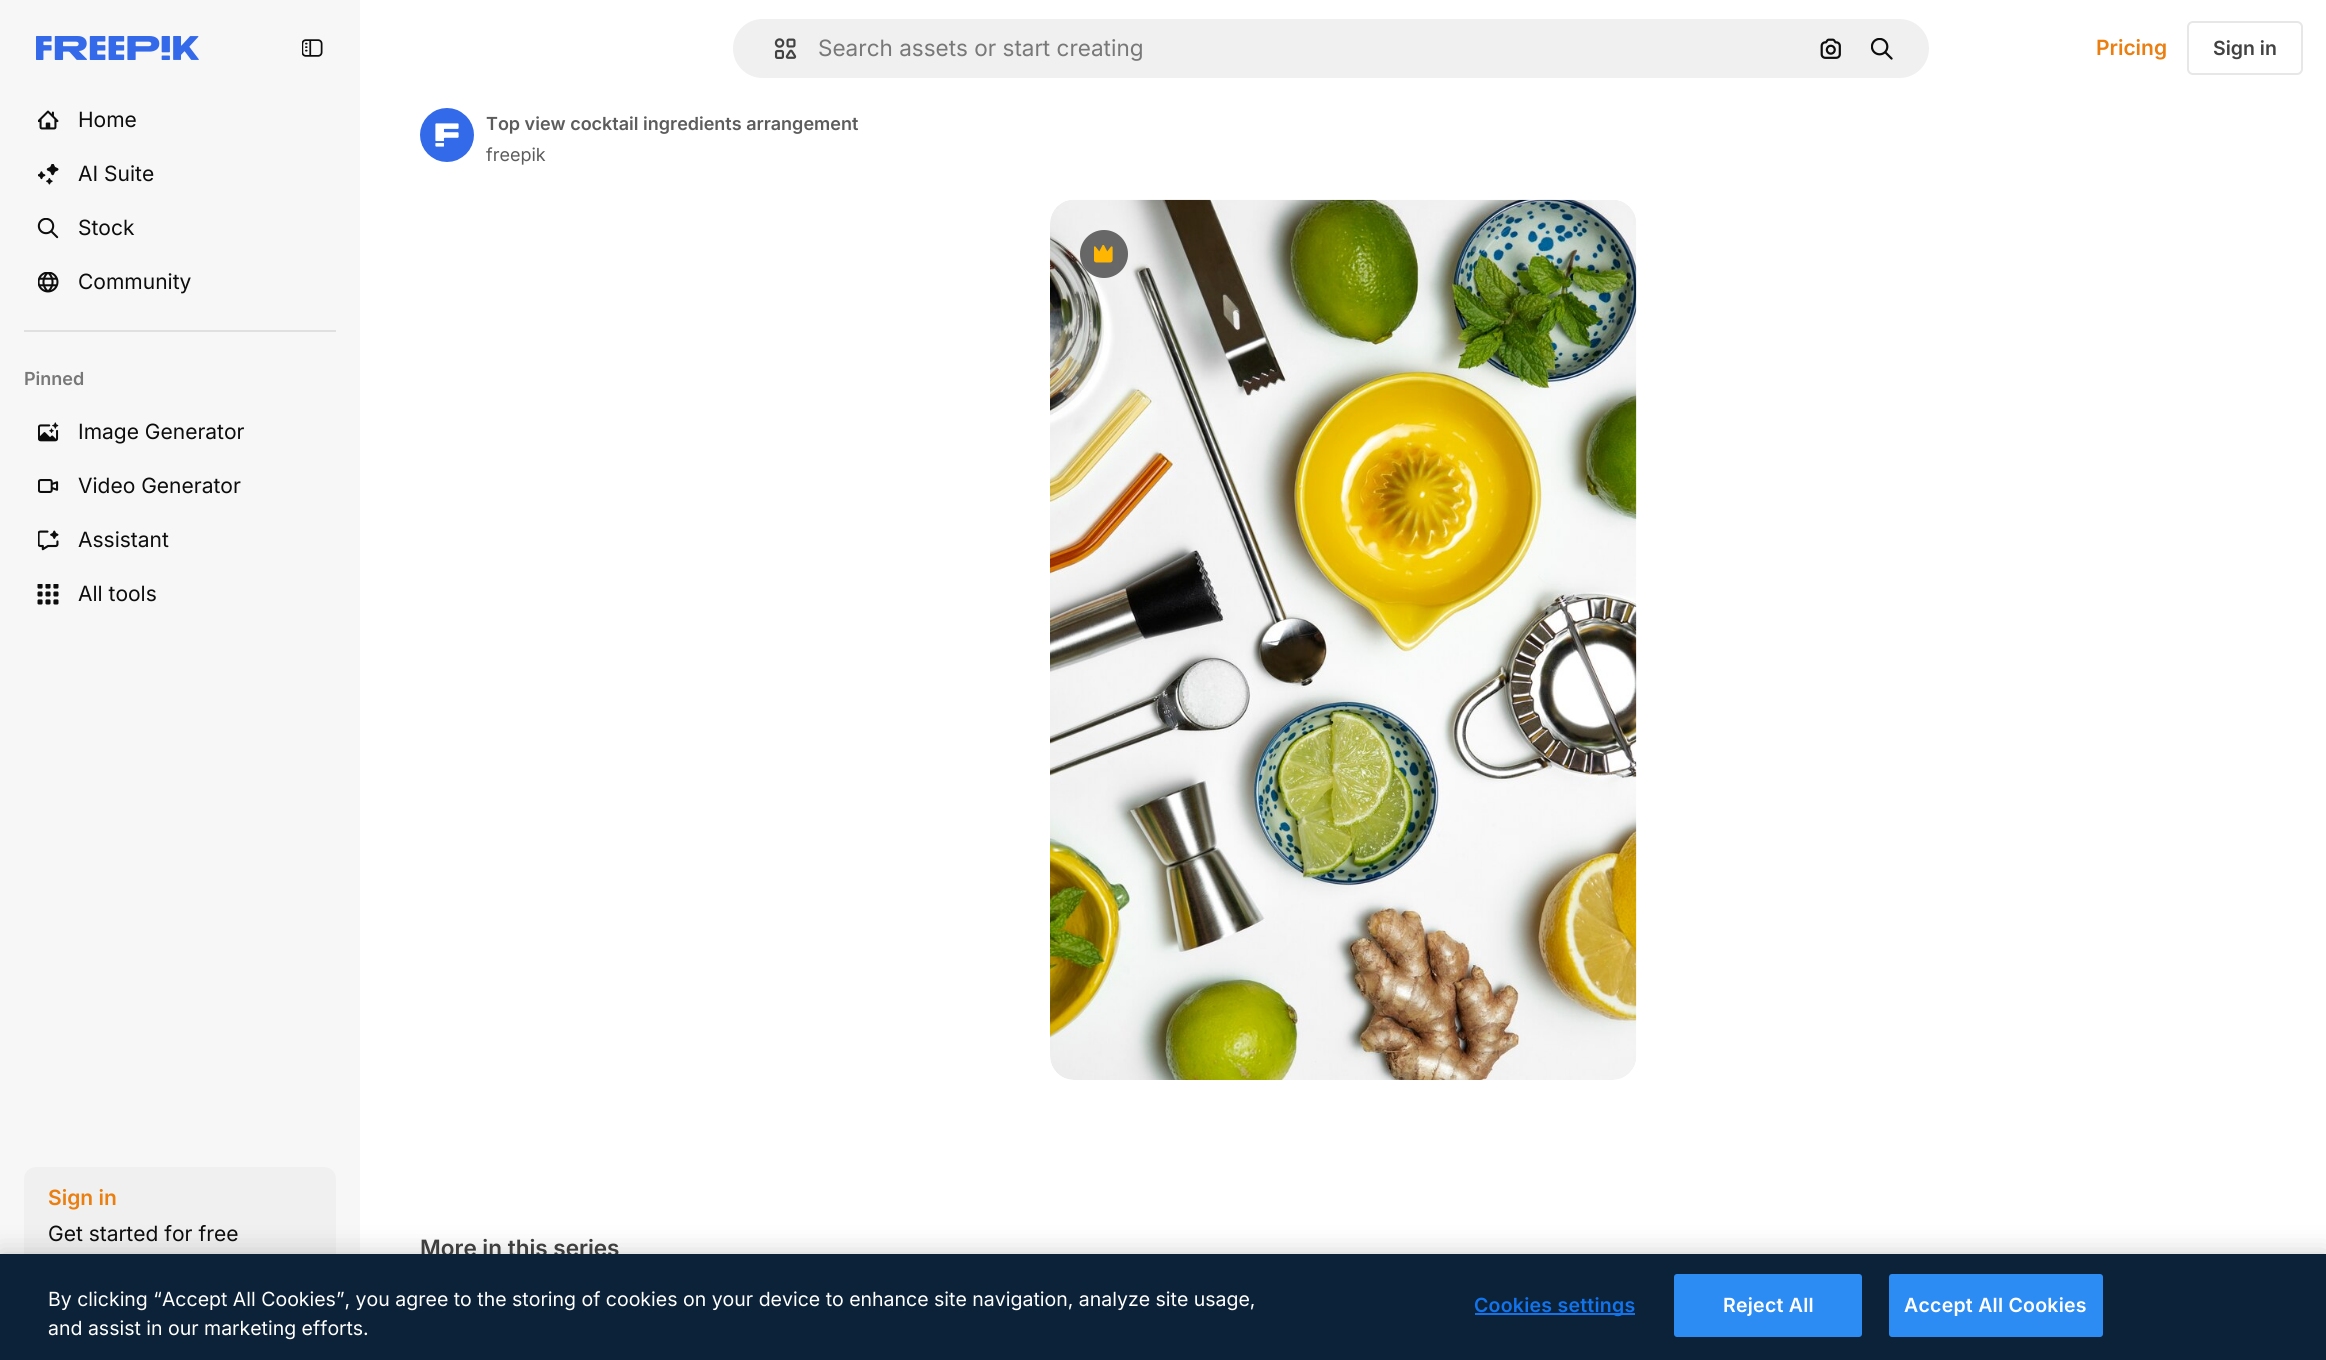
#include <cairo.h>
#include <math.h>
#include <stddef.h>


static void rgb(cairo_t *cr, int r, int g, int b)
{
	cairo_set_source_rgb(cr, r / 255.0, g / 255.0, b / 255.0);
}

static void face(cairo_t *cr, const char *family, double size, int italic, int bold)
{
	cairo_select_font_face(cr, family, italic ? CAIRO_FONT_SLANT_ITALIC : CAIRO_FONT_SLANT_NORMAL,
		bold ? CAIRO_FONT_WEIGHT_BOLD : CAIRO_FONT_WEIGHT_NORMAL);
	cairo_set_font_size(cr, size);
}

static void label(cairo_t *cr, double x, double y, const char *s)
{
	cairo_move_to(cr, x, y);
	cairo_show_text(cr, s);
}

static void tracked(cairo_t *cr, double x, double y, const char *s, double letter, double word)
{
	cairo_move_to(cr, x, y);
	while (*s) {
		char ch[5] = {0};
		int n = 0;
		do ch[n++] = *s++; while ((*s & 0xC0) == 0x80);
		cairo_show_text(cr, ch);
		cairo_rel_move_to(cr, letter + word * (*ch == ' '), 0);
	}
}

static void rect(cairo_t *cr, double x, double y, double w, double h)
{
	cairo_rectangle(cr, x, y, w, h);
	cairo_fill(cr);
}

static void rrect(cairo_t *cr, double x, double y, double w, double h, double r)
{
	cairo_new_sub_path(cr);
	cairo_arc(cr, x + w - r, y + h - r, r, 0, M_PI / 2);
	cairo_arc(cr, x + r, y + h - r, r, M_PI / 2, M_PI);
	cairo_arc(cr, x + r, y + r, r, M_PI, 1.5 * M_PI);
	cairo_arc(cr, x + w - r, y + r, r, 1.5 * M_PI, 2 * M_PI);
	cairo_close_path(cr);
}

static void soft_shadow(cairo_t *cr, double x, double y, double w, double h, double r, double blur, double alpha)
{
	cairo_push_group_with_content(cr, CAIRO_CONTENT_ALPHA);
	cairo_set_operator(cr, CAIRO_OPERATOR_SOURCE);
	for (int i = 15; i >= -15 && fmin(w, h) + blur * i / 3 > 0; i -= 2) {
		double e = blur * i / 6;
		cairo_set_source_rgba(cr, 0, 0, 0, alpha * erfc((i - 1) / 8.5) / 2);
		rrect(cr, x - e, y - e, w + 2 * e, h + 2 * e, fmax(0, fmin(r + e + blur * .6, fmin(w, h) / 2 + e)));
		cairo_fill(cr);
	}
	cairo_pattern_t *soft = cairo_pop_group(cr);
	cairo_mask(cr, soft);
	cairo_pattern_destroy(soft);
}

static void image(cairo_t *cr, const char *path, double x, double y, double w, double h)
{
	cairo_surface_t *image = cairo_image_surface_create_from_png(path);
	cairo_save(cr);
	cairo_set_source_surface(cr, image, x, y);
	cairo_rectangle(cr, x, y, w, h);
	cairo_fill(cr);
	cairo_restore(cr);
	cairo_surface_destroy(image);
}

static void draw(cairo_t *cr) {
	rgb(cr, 255, 255, 255);
	cairo_paint(cr);
	rgb(cr, 247, 247, 247);
	rect(cr, 0, 0, 360, 1254);
	image(cr, "image0.png", 36, 36, 163, 24);
	image(cr, "image1.png", 302, 39, 21, 18);
	image(cr, "image2.png", 38, 110, 21, 20);
	face(cr, "Inter", 21, 0, 0);
	rgb(cr, 13, 13, 13);
	label(cr, 78, 127, "Home");
	image(cr, "image3.png", 38, 164, 21, 21);
	label(cr, 78, 181, "AI Suite");
	image(cr, "image4.png", 37, 218, 22, 21);
	label(cr, 78, 235, "Stock");
	image(cr, "image5.png", 38, 272, 21, 21);
	label(cr, 78, 289, "Community");
	rgb(cr, 224, 224, 224);
	rect(cr, 24, 330, 312, 2);
	face(cr, "Inter SemiBold", 18, 0, 0);
	rgb(cr, 120, 120, 120);
	label(cr, 24, 385, "Pinned");
	image(cr, "image6.png", 38, 422, 21, 20);
	face(cr, "Inter", 21, 0, 0);
	rgb(cr, 13, 13, 13);
	label(cr, 78, 439, "Image Generator");
	image(cr, "image7.png", 38, 479, 21, 14);
	label(cr, 78, 493, "Video Generator");
	image(cr, "image8.png", 38, 530, 21, 21);
	label(cr, 78, 547, "Assistant");
	image(cr, "image9.png", 37, 584, 22, 21);
	label(cr, 78, 601, "All tools");
	rgb(cr, 240, 240, 240);
	rrect(cr, 24, 1167, 312, 98, 12);
	cairo_fill(cr);
	face(cr, "Inter SemiBold", 21, 0, 0);
	rgb(cr, 234, 126, 17);
	label(cr, 48, 1205, "Sign in");
	face(cr, "Inter", 21, 0, 0);
	rgb(cr, 13, 13, 13);
	label(cr, 48, 1241, "Get started for free");
	rgb(cr, 240, 240, 240);
	rrect(cr, 732, 18, 1198, 61, 30.5);
	cairo_fill_preserve(cr);
	rgb(cr, 255, 255, 255);
	cairo_stroke(cr);
	image(cr, "image10.png", 774, 38, 23, 21);
	face(cr, "Inter", 22.5, 0, 0);
	rgb(cr, 120, 120, 120);
	label(cr, 818, 56, "Search assets or start creating");
	image(cr, "image11.png", 1820, 38, 21, 21);
	image(cr, "image12.png", 1871, 38, 22, 22);
	face(cr, "Inter SemiBold", 21, 0, 0);
	rgb(cr, 234, 126, 17);
	label(cr, 2096, 55, "Pricing");
	rrect(cr, 2188, 22, 114, 52, 5);
	rgb(cr, 231, 231, 231);
	cairo_stroke(cr);
	face(cr, "Inter SemiBold", 19.5, 0, 0);
	rgb(cr, 66, 66, 66);
	label(cr, 2213, 55, "Sign in");
	image(cr, "image13.png", 420, 108, 54, 54);
	face(cr, "Inter SemiBold", 18, 0, 0);
	rgb(cr, 92, 92, 92);
	label(cr, 486, 130, "Top view cocktail ingredients arrangement");
	face(cr, "Inter", 18, 0, 0);
	label(cr, 486, 161, "freepik");
	image(cr, "image14.png", 1050, 199, 587, 881);
	cairo_set_source_rgba(cr, 0.051, 0.051, 0.051, 0.6);
	cairo_arc(cr, 1104, 254, 24, 0, 2 * M_PI);
	cairo_fill(cr);
	image(cr, "image15.png", 1094, 245, 19, 18);
	face(cr, "Inter SemiBold", 22.5, 0, 0);
	rgb(cr, 66, 66, 66);
	label(cr, 420, 1256, "More in this series");
	rgb(cr, 0, 0, 0);
	soft_shadow(cr, 0, 1254, 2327, 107, 0, 13.5, 0.2);
	rgb(cr, 11, 34, 57);
	rect(cr, 0, 1254, 2326, 106);
	face(cr, "Inter", 19.5, 0, 0);
	rgb(cr, 255, 255, 255);
	label(cr, 48, 1306, "By clicking “Accept All Cookies”, you agree to the storing of cookies on your device to enhance site navigation, analyze site usage,");
	label(cr, 48, 1335, "and assist in our marketing efforts.");
	rgb(cr, 18, 115, 235);
	rect(cr, 1475, 1313, 160, 2);
	face(cr, "Inter SemiBold", 19.5, 0, 0);
	tracked(cr, 1474, 1312, "Cookies settings", 0.25, 0);
	rgb(cr, 44, 140, 244);
	rrect(cr, 1675, 1275, 186, 61, 2);
	cairo_fill_preserve(cr);
	cairo_stroke(cr);
	rgb(cr, 255, 255, 255);
	tracked(cr, 1723, 1312, "Reject All", 0.25, 0);
	rgb(cr, 44, 140, 244);
	rrect(cr, 1890, 1275, 212, 61, 2);
	cairo_fill_preserve(cr);
	cairo_stroke(cr);
	rgb(cr, 255, 255, 255);
	tracked(cr, 1904, 1312, "Accept All Cookies", 0.25, 0);
}

int main(void) {
	cairo_surface_t *surface = cairo_image_surface_create(CAIRO_FORMAT_RGB24, 2326, 1360);
	cairo_t *cr = cairo_create(surface);
	cairo_font_options_t *options = cairo_font_options_create();
	cairo_font_options_set_hint_metrics(options, CAIRO_HINT_METRICS_OFF);
	cairo_font_options_set_hint_style(options, CAIRO_HINT_STYLE_NONE);
	cairo_set_font_options(cr, options);
	cairo_set_miter_limit(cr, 4);
	draw(cr);
	cairo_surface_write_to_png(surface, "render.png");
	cairo_font_options_destroy(options);
	cairo_destroy(cr);
	cairo_surface_destroy(surface);
	return 0;
}
